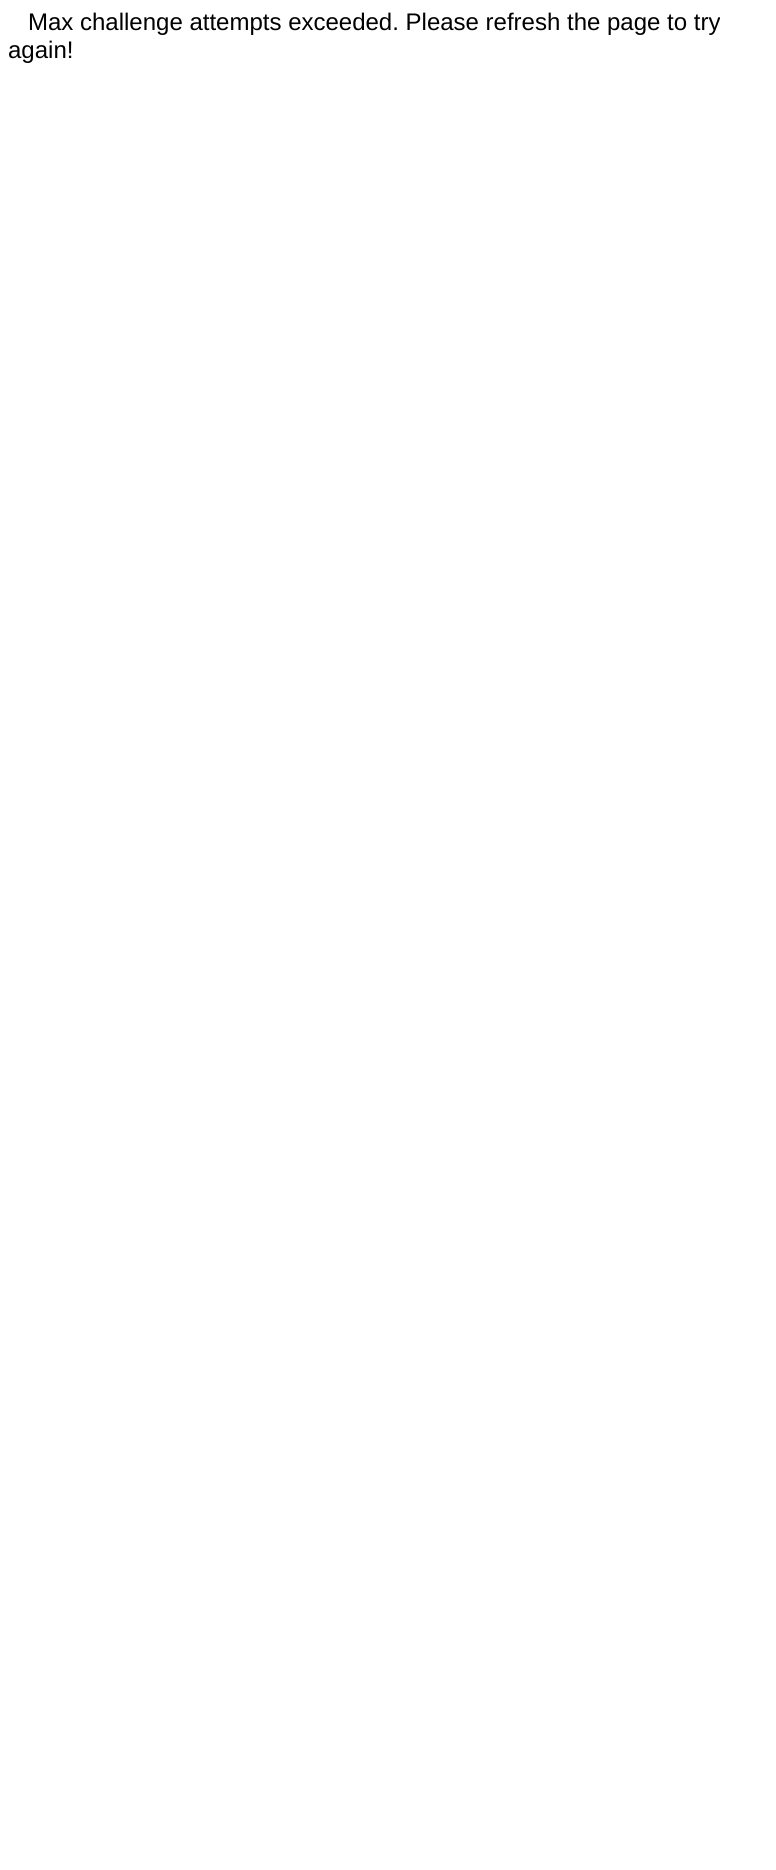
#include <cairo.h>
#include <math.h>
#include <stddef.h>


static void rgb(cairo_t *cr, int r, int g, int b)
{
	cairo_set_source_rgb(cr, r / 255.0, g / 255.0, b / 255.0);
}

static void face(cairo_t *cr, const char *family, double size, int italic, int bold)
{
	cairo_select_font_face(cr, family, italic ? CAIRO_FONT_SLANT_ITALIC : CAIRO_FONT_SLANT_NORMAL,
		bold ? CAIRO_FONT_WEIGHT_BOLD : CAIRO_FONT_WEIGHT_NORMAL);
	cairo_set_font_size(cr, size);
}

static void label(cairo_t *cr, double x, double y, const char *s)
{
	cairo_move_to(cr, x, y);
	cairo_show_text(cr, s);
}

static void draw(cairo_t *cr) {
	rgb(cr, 255, 255, 255);
	cairo_paint(cr);
	face(cr, "Liberation Sans", 24, 0, 0);
	rgb(cr, 0, 0, 0);
	label(cr, 28, 30, "Max challenge attempts exceeded. Please refresh the page to try");
	label(cr, 8, 58, "again!");
}

int main(void) {
	cairo_surface_t *surface = cairo_image_surface_create(CAIRO_FORMAT_RGB24, 776, 1870);
	cairo_t *cr = cairo_create(surface);
	cairo_font_options_t *options = cairo_font_options_create();
	cairo_font_options_set_hint_metrics(options, CAIRO_HINT_METRICS_OFF);
	cairo_font_options_set_hint_style(options, CAIRO_HINT_STYLE_NONE);
	cairo_set_font_options(cr, options);
	cairo_set_miter_limit(cr, 4);
	draw(cr);
	cairo_surface_write_to_png(surface, "render.png");
	cairo_font_options_destroy(options);
	cairo_destroy(cr);
	cairo_surface_destroy(surface);
	return 0;
}
